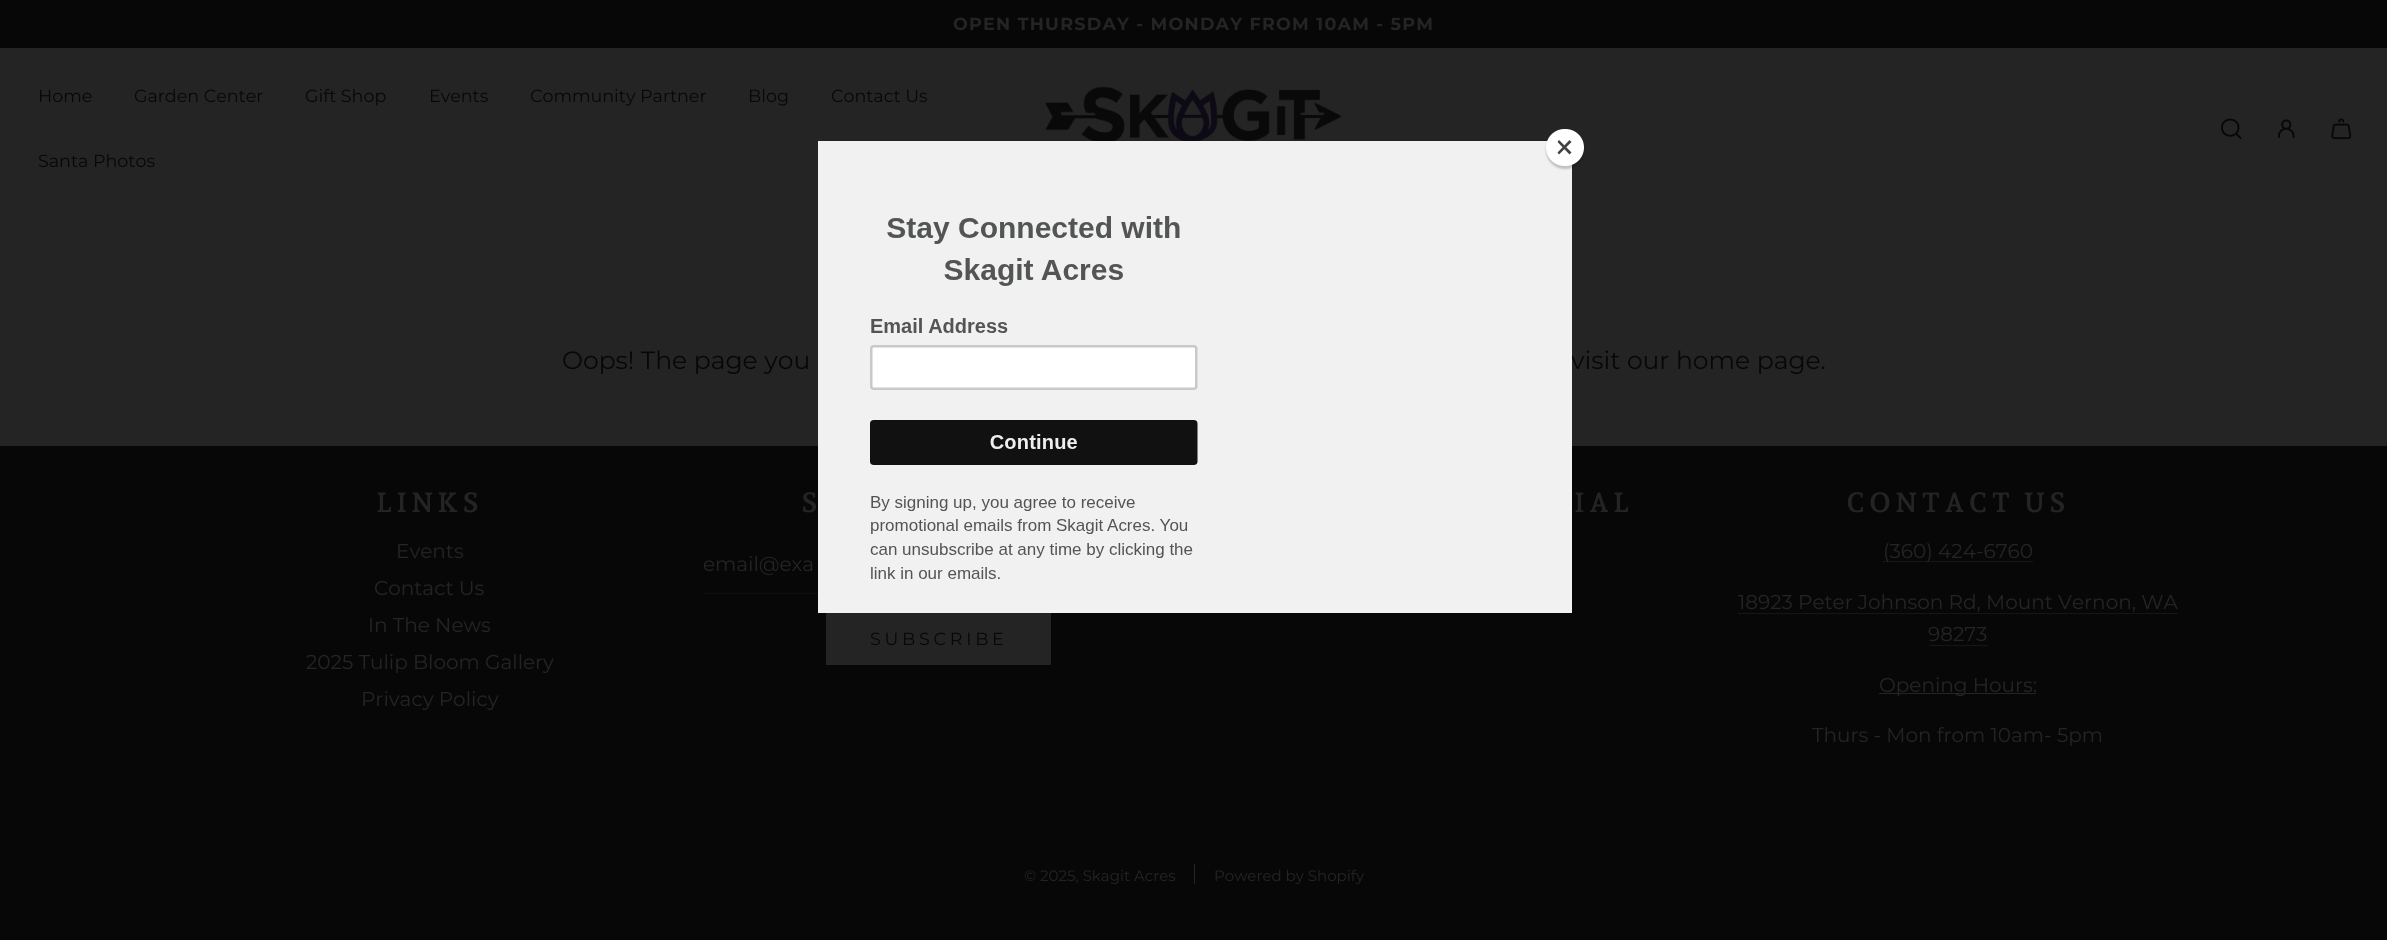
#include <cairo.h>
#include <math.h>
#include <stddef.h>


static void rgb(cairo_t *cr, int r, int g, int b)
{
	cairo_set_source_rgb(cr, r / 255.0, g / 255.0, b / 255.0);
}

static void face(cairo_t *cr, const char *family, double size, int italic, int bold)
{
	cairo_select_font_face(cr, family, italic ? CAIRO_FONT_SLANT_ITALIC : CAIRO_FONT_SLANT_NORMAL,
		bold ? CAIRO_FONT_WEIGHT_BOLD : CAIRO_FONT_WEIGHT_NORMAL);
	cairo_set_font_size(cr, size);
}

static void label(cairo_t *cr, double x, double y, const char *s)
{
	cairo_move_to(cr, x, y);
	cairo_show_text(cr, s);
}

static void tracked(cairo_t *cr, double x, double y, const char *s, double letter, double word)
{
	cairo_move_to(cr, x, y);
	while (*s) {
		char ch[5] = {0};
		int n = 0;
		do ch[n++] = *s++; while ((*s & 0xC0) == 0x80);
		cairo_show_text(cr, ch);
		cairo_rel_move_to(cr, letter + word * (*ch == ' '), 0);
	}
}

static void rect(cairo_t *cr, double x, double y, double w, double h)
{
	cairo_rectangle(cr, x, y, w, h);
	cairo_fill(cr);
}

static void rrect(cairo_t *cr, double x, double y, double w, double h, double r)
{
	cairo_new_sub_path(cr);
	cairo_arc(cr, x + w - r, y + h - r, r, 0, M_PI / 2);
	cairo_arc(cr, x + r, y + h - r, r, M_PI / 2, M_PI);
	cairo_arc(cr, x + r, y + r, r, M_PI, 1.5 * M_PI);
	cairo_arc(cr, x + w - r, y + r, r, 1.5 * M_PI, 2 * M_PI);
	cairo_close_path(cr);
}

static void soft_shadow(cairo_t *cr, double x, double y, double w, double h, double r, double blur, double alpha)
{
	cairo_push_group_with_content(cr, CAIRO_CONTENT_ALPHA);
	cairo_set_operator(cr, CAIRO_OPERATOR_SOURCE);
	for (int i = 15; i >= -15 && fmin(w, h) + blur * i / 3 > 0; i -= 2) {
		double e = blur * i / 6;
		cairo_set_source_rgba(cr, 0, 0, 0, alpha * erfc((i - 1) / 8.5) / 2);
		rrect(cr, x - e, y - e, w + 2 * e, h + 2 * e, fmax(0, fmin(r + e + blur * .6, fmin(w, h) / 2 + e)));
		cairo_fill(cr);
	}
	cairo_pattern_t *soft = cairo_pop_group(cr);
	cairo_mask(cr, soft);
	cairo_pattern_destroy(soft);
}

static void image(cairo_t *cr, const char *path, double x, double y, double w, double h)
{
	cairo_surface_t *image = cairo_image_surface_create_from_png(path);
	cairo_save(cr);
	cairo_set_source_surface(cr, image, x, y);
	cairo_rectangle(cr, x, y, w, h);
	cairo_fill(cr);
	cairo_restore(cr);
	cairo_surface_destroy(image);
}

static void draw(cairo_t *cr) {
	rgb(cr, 36, 36, 36);
	cairo_paint(cr);
	rgb(cr, 7, 7, 7);
	rect(cr, 0, 0, 2387, 48);
	face(cr, "Montserrat", 17.5, 0, 1);
	rgb(cr, 36, 36, 36);
	tracked(cr, 953, 30, "OPEN THURSDAY - MONDAY FROM 10AM - 5PM", 1.25, 0);
	face(cr, "Montserrat", 17.5, 0, 0);
	rgb(cr, 7, 7, 7);
	label(cr, 38, 102, "Home");
	label(cr, 134, 102, "Garden Center");
	label(cr, 305, 102, "Gift Shop");
	label(cr, 429, 102, "Events");
	label(cr, 530, 102, "Community Partner");
	label(cr, 748, 102, "Blog");
	label(cr, 831, 102, "Contact Us");
	label(cr, 38, 167, "Santa Photos");
	image(cr, "image0.png", 1045, 86, 297, 55);
	cairo_new_path(cr);
	cairo_move_to(cr, 2236.5, 134);
	cairo_line_to(cr, 2240.5, 138);
	cairo_move_to(cr, 2222, 127.5);
	cairo_curve_to(cr, 2222, 138.5, 2238.5, 138.5, 2238.5, 127.5);
	cairo_curve_to(cr, 2238.5, 117, 2222, 117, 2222, 127.5);
	cairo_close_path(cr);
	cairo_set_line_width(cr, 1.9);
	cairo_set_line_cap(cr, CAIRO_LINE_CAP_ROUND);
	cairo_set_line_join(cr, CAIRO_LINE_JOIN_ROUND);
	cairo_stroke(cr);
	image(cr, "image1.png", 2278, 119, 17, 19);
	image(cr, "image2.png", 2331, 118, 21, 22);
	face(cr, "Montserrat", 25, 0, 0);
	label(cr, 562, 369, "Oops! The page you");
	label(cr, 1571, 369, "visit our home page.");
	rect(cr, 0, 446, 2387, 494);
	image(cr, "image3.png", 818, 141, 754, 472);
	rgb(cr, 0, 0, 0);
	soft_shadow(cr, 1546, 131, 38, 38, 19, 1, 0.2);
	rgb(cr, 255, 255, 255);
	rrect(cr, 1546, 129, 38, 37, 18.5);
	cairo_fill(cr);
	rgb(cr, 65, 65, 65);
	cairo_new_path(cr);
	cairo_move_to(cr, 1569.5, 140);
	cairo_line_to(cr, 1571.5, 142);
	cairo_line_to(cr, 1559, 154.5);
	cairo_line_to(cr, 1557.5, 152.5);
	cairo_close_path(cr);
	cairo_fill(cr);
	cairo_new_path(cr);
	cairo_move_to(cr, 1557.5, 142);
	cairo_line_to(cr, 1559, 140);
	cairo_line_to(cr, 1571.5, 152.5);
	cairo_line_to(cr, 1569.5, 154.5);
	cairo_close_path(cr);
	cairo_fill(cr);
	face(cr, "Andada Pro", 27.5, 0, 1);
	rgb(cr, 36, 36, 36);
	tracked(cr, 376, 512, "LINKS", 3.75, 0);
	face(cr, "Montserrat", 20, 0, 0);
	label(cr, 396, 558, "Events");
	label(cr, 374, 595, "Contact Us");
	label(cr, 368, 632, "In The News");
	label(cr, 306, 669, "2025 Tulip Bloom Gallery");
	label(cr, 361, 706, "Privacy Policy");
	face(cr, "Andada Pro", 27.5, 0, 1);
	tracked(cr, 801, 512, "S", 3.75, 0);
	rgb(cr, 14, 15, 14);
	rect(cr, 704, 593, 114, 1);
	face(cr, "Montserrat", 20, 0, 0);
	rgb(cr, 36, 36, 36);
	label(cr, 703, 571, "email@exa");
	rect(cr, 826, 613, 225, 52);
	face(cr, "Montserrat", 17.5, 0, 0);
	rgb(cr, 7, 7, 7);
	tracked(cr, 870, 645, "SUBSCRIBE", 3.75, 0);
	face(cr, "Andada Pro", 27.5, 0, 1);
	rgb(cr, 36, 36, 36);
	tracked(cr, 1574, 512, "IAL", 3.75, 0);
	tracked(cr, 1846, 512, "CONTACT US", 3.75, 0);
	rgb(cr, 22, 22, 22);
	rect(cr, 1883, 561, 150, 1);
	face(cr, "Montserrat", 20, 0, 0);
	rgb(cr, 36, 36, 36);
	label(cr, 1883, 558, "(360) 424-6760");
	label(cr, 1738, 609, "18923 Peter Johnson Rd, Mount Vernon, WA");
	rgb(cr, 22, 22, 22);
	rect(cr, 1738, 613, 440, 1);
	rgb(cr, 36, 36, 36);
	label(cr, 1928, 641, "98273");
	rgb(cr, 22, 22, 22);
	rect(cr, 1929, 645, 59, 1);
	rgb(cr, 36, 36, 36);
	rect(cr, 1879, 693, 157, 1);
	label(cr, 1879, 692, "Opening Hours:");
	label(cr, 1812, 742, "Thurs - Mon from 10am- 5pm");
	face(cr, "Montserrat", 15, 0, 0);
	label(cr, 1024, 881, "© 2025, Skagit Acres");
	rect(cr, 1194, 864, 1, 20);
	label(cr, 1214, 881, "Powered by Shopify");
}

int main(void) {
	cairo_surface_t *surface = cairo_image_surface_create(CAIRO_FORMAT_RGB24, 2387, 940);
	cairo_t *cr = cairo_create(surface);
	cairo_font_options_t *options = cairo_font_options_create();
	cairo_font_options_set_hint_metrics(options, CAIRO_HINT_METRICS_OFF);
	cairo_font_options_set_hint_style(options, CAIRO_HINT_STYLE_NONE);
	cairo_set_font_options(cr, options);
	cairo_set_miter_limit(cr, 4);
	draw(cr);
	cairo_surface_write_to_png(surface, "render.png");
	cairo_font_options_destroy(options);
	cairo_destroy(cr);
	cairo_surface_destroy(surface);
	return 0;
}
